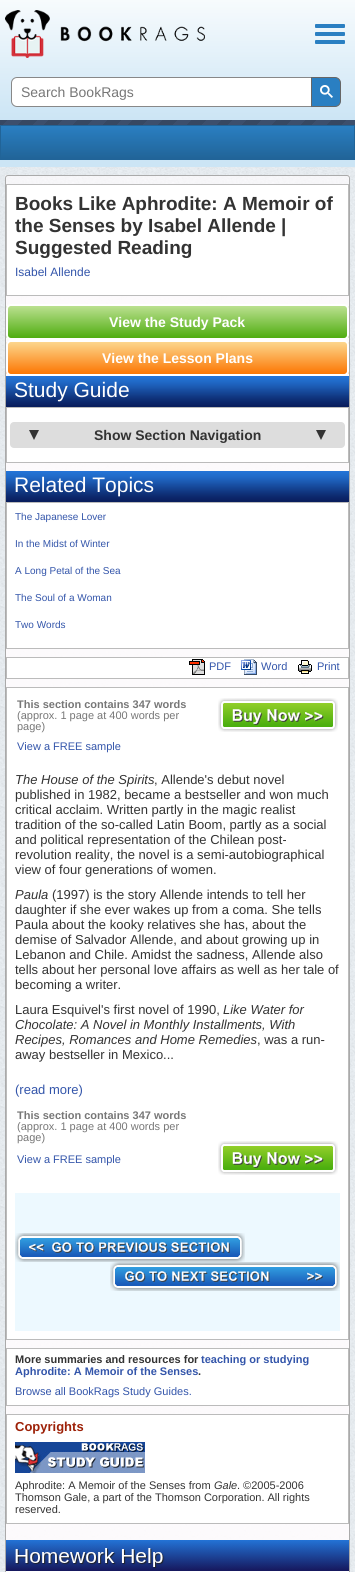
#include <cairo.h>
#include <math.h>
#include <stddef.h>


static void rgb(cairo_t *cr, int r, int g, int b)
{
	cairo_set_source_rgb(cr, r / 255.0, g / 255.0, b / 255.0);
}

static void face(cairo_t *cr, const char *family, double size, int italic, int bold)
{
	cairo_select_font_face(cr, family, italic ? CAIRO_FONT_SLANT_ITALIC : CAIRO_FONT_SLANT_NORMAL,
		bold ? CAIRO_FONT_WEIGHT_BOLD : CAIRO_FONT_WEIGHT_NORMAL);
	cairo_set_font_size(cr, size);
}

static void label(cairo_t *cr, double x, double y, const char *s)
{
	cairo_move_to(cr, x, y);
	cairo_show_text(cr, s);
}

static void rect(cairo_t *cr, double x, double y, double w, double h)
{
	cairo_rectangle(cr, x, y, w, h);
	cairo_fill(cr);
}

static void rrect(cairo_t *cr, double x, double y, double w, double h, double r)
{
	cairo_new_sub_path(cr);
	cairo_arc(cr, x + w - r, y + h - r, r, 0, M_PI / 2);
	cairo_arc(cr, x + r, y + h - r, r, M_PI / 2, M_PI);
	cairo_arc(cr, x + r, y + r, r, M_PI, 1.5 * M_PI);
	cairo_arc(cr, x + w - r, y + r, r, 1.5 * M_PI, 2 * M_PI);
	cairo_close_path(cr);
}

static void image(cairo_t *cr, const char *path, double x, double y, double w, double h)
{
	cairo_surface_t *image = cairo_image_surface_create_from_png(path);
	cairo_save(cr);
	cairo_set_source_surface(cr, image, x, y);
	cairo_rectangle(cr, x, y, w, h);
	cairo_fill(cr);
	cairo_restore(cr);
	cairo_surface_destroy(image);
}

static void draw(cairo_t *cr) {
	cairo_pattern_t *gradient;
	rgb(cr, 255, 255, 255);
	cairo_paint(cr);
	image(cr, "image0.png", 0, 167, 355, 1405);
	gradient = cairo_pattern_create_linear(178, 0, 178, 120);
	cairo_pattern_add_color_stop_rgba(gradient, 0, 0.969, 0.984, 0.992, 1);
	cairo_pattern_add_color_stop_rgba(gradient, 1, 0.8, 0.898, 0.961, 1);
	cairo_set_source(cr, gradient);
	cairo_pattern_destroy(gradient);
	rect(cr, 0, 0, 355, 120);
	image(cr, "image1.png", 5, 10, 200, 48);
	rgb(cr, 42, 127, 194);
	rrect(cr, 315, 24, 30, 4, 1);
	cairo_fill(cr);
	rrect(cr, 315, 32, 30, 4, 1);
	cairo_fill(cr);
	rrect(cr, 315, 40, 30, 4, 1);
	cairo_fill(cr);
	rgb(cr, 255, 255, 255);
	cairo_new_path(cr);
	cairo_move_to(cr, 17, 77.5);
	cairo_line_to(cr, 311.5, 77.5);
	cairo_line_to(cr, 311.5, 106.5);
	cairo_line_to(cr, 17, 106.5);
	cairo_curve_to(cr, 14, 106.5, 11.5, 104, 11.5, 101);
	cairo_line_to(cr, 11.5, 83);
	cairo_curve_to(cr, 11.5, 80, 14, 77.5, 17, 77.5);
	cairo_close_path(cr);
	cairo_fill_preserve(cr);
	rgb(cr, 136, 136, 136);
	cairo_set_line_width(cr, 1);
	cairo_stroke(cr);
	face(cr, "Liberation Sans", 14, 0, 0);
	rgb(cr, 119, 119, 119);
	label(cr, 21, 97, "Search BookRags");
	rgb(cr, 42, 127, 194);
	cairo_new_path(cr);
	cairo_move_to(cr, 311.5, 77.5);
	cairo_line_to(cr, 335, 77.5);
	cairo_curve_to(cr, 338, 77.5, 340.5, 80, 340.5, 83);
	cairo_line_to(cr, 340.5, 101);
	cairo_curve_to(cr, 340.5, 104, 338, 106.5, 335, 106.5);
	cairo_line_to(cr, 311.5, 106.5);
	cairo_close_path(cr);
	cairo_fill_preserve(cr);
	rgb(cr, 102, 102, 102);
	cairo_stroke(cr);
	image(cr, "image2.png", 320, 85, 13, 13);
	gradient = cairo_pattern_create_linear(268, 213, 84, 29);
	cairo_pattern_add_color_stop_rgba(gradient, 0, 0.239, 0.31, 0.424, 1);
	cairo_pattern_add_color_stop_rgba(gradient, 0.04, 0.239, 0.31, 0.424, 1);
	cairo_pattern_add_color_stop_rgba(gradient, 0.04, 0.216, 0.282, 0.384, 1);
	cairo_pattern_add_color_stop_rgba(gradient, 0.08, 0.216, 0.282, 0.384, 1);
	cairo_pattern_add_color_stop_rgba(gradient, 0.08, 0.239, 0.31, 0.424, 1);
	cairo_pattern_add_color_stop_rgba(gradient, 0.12, 0.239, 0.31, 0.424, 1);
	cairo_pattern_add_color_stop_rgba(gradient, 0.12, 0.216, 0.282, 0.384, 1);
	cairo_pattern_add_color_stop_rgba(gradient, 0.15, 0.216, 0.282, 0.384, 1);
	cairo_pattern_add_color_stop_rgba(gradient, 0.15, 0.239, 0.31, 0.424, 1);
	cairo_pattern_add_color_stop_rgba(gradient, 0.19, 0.239, 0.31, 0.424, 1);
	cairo_pattern_add_color_stop_rgba(gradient, 0.19, 0.216, 0.282, 0.384, 1);
	cairo_pattern_add_color_stop_rgba(gradient, 0.23, 0.216, 0.282, 0.384, 1);
	cairo_pattern_add_color_stop_rgba(gradient, 0.23, 0.239, 0.31, 0.424, 1);
	cairo_pattern_add_color_stop_rgba(gradient, 0.27, 0.239, 0.31, 0.424, 1);
	cairo_pattern_add_color_stop_rgba(gradient, 0.27, 0.216, 0.282, 0.384, 1);
	cairo_pattern_add_color_stop_rgba(gradient, 0.31, 0.216, 0.282, 0.384, 1);
	cairo_pattern_add_color_stop_rgba(gradient, 0.31, 0.239, 0.31, 0.424, 1);
	cairo_pattern_add_color_stop_rgba(gradient, 0.35, 0.239, 0.31, 0.424, 1);
	cairo_pattern_add_color_stop_rgba(gradient, 0.35, 0.216, 0.282, 0.384, 1);
	cairo_pattern_add_color_stop_rgba(gradient, 0.38, 0.216, 0.282, 0.384, 1);
	cairo_pattern_add_color_stop_rgba(gradient, 0.38, 0.239, 0.31, 0.424, 1);
	cairo_pattern_add_color_stop_rgba(gradient, 0.42, 0.239, 0.31, 0.424, 1);
	cairo_pattern_add_color_stop_rgba(gradient, 0.42, 0.216, 0.282, 0.384, 1);
	cairo_pattern_add_color_stop_rgba(gradient, 0.46, 0.216, 0.282, 0.384, 1);
	cairo_pattern_add_color_stop_rgba(gradient, 0.46, 0.239, 0.31, 0.424, 1);
	cairo_pattern_add_color_stop_rgba(gradient, 0.5, 0.239, 0.31, 0.424, 1);
	cairo_pattern_add_color_stop_rgba(gradient, 0.5, 0.216, 0.282, 0.384, 1);
	cairo_pattern_add_color_stop_rgba(gradient, 0.54, 0.216, 0.282, 0.384, 1);
	cairo_pattern_add_color_stop_rgba(gradient, 0.54, 0.239, 0.31, 0.424, 1);
	cairo_pattern_add_color_stop_rgba(gradient, 0.58, 0.239, 0.31, 0.424, 1);
	cairo_pattern_add_color_stop_rgba(gradient, 0.58, 0.216, 0.282, 0.384, 1);
	cairo_pattern_add_color_stop_rgba(gradient, 0.62, 0.216, 0.282, 0.384, 1);
	cairo_pattern_add_color_stop_rgba(gradient, 0.62, 0.239, 0.31, 0.424, 1);
	cairo_pattern_add_color_stop_rgba(gradient, 0.65, 0.239, 0.31, 0.424, 1);
	cairo_pattern_add_color_stop_rgba(gradient, 0.65, 0.216, 0.282, 0.384, 1);
	cairo_pattern_add_color_stop_rgba(gradient, 0.69, 0.216, 0.282, 0.384, 1);
	cairo_pattern_add_color_stop_rgba(gradient, 0.69, 0.239, 0.31, 0.424, 1);
	cairo_pattern_add_color_stop_rgba(gradient, 0.73, 0.239, 0.31, 0.424, 1);
	cairo_pattern_add_color_stop_rgba(gradient, 0.73, 0.216, 0.282, 0.384, 1);
	cairo_pattern_add_color_stop_rgba(gradient, 0.77, 0.216, 0.282, 0.384, 1);
	cairo_pattern_add_color_stop_rgba(gradient, 0.77, 0.239, 0.31, 0.424, 1);
	cairo_pattern_add_color_stop_rgba(gradient, 0.81, 0.239, 0.31, 0.424, 1);
	cairo_pattern_add_color_stop_rgba(gradient, 0.81, 0.216, 0.282, 0.384, 1);
	cairo_pattern_add_color_stop_rgba(gradient, 0.85, 0.216, 0.282, 0.384, 1);
	cairo_pattern_add_color_stop_rgba(gradient, 0.85, 0.239, 0.31, 0.424, 1);
	cairo_pattern_add_color_stop_rgba(gradient, 0.88, 0.239, 0.31, 0.424, 1);
	cairo_pattern_add_color_stop_rgba(gradient, 0.88, 0.216, 0.282, 0.384, 1);
	cairo_pattern_add_color_stop_rgba(gradient, 0.92, 0.216, 0.282, 0.384, 1);
	cairo_pattern_add_color_stop_rgba(gradient, 0.92, 0.239, 0.31, 0.424, 1);
	cairo_pattern_add_color_stop_rgba(gradient, 0.96, 0.239, 0.31, 0.424, 1);
	cairo_pattern_add_color_stop_rgba(gradient, 0.96, 0.216, 0.282, 0.384, 1);
	cairo_pattern_add_color_stop_rgba(gradient, 1, 0.216, 0.282, 0.384, 1);
	cairo_set_source(cr, gradient);
	cairo_pattern_destroy(gradient);
	rect(cr, 0, 120, 355, 5);
	gradient = cairo_pattern_create_linear(178, 126, 178, 159);
	cairo_pattern_add_color_stop_rgba(gradient, 0, 0.165, 0.498, 0.761, 1);
	cairo_pattern_add_color_stop_rgba(gradient, 1, 0.129, 0.392, 0.596, 1);
	cairo_set_source(cr, gradient);
	cairo_pattern_destroy(gradient);
	rect(cr, 1, 126, 353, 33);
	cairo_rectangle(cr, 0.5, 125.5, 354, 34);
	rgb(cr, 33, 100, 152);
	cairo_stroke(cr);
	rgb(cr, 204, 229, 245);
	rect(cr, 0, 160, 355, 7);
	cairo_set_source_rgba(cr, 1, 0.988, 0.996, 0.67);
	rect(cr, 5, 175, 345, 1365);
	rrect(cr, 5.5, 175.5, 344, 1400, 2.5);
	rgb(cr, 170, 170, 170);
	cairo_stroke(cr);
	cairo_set_source_rgba(cr, 1, 0.988, 0.996, 0.67);
	rect(cr, 6, 296, 343, 1244);
	rgb(cr, 255, 255, 255);
	cairo_rectangle(cr, 6.5, 184.5, 342, 111);
	cairo_fill_preserve(cr);
	rgb(cr, 187, 187, 187);
	cairo_stroke(cr);
	face(cr, "Liberation Sans", 19, 0, 1);
	rgb(cr, 51, 51, 51);
	label(cr, 15, 210, "Books Like Aphrodite: A Memoir of");
	label(cr, 15, 232, "the Senses by Isabel Allende |");
	label(cr, 15, 254, "Suggested Reading");
	face(cr, "Liberation Sans", 12, 0, 0);
	rgb(cr, 51, 85, 170);
	label(cr, 15, 276, "Isabel Allende");
	cairo_save(cr);
	rrect(cr, 6, 304, 343, 36, 5);
	cairo_clip(cr);
	gradient = cairo_pattern_create_linear(178, 306, 178, 338);
	cairo_pattern_add_color_stop_rgba(gradient, 0, 0.733, 0.878, 0.565, 1);
	cairo_pattern_add_color_stop_rgba(gradient, 1, 0.31, 0.678, 0.063, 1);
	cairo_set_source(cr, gradient);
	cairo_pattern_destroy(gradient);
	rect(cr, 6, 306, 343, 32);
	cairo_restore(cr);
	rrect(cr, 7, 305, 341, 34, 4);
	rgb(cr, 255, 255, 255);
	cairo_set_line_width(cr, 2);
	cairo_stroke(cr);
	face(cr, "Liberation Sans", 14, 0, 1);
	label(cr, 109, 327, "View the Study Pack");
	cairo_save(cr);
	rrect(cr, 6, 340, 343, 36, 5);
	cairo_clip(cr);
	gradient = cairo_pattern_create_linear(178, 342, 178, 374);
	cairo_pattern_add_color_stop_rgba(gradient, 0, 0.988, 0.839, 0.553, 1);
	cairo_pattern_add_color_stop_rgba(gradient, 1, 0.988, 0.467, 0.012, 1);
	cairo_set_source(cr, gradient);
	cairo_pattern_destroy(gradient);
	rect(cr, 6, 342, 343, 32);
	cairo_restore(cr);
	rrect(cr, 7, 341, 341, 34, 4);
	cairo_stroke(cr);
	label(cr, 102, 363, "View the Lesson Plans");
	rgb(cr, 9, 30, 94);
	rect(cr, 6, 405, 343, 2);
	image(cr, "image3.png", 6, 376, 343, 29);
	face(cr, "Liberation Sans", 21, 0, 0);
	rgb(cr, 255, 255, 255);
	label(cr, 14, 397, "Study Guide");
	cairo_rectangle(cr, 6.5, 407.5, 342, 55);
	cairo_fill_preserve(cr);
	rgb(cr, 187, 187, 187);
	cairo_set_line_width(cr, 1);
	cairo_stroke(cr);
	rgb(cr, 221, 221, 221);
	rrect(cr, 10, 422, 335, 26, 4);
	cairo_fill(cr);
	rgb(cr, 51, 51, 51);
	cairo_new_path(cr);
	cairo_move_to(cr, 29, 430);
	cairo_line_to(cr, 39, 430);
	cairo_line_to(cr, 34, 440);
	cairo_close_path(cr);
	cairo_fill(cr);
	face(cr, "Liberation Sans", 14, 0, 1);
	label(cr, 94, 440, "Show Section Navigation");
	cairo_new_path(cr);
	cairo_move_to(cr, 316, 430);
	cairo_line_to(cr, 326, 430);
	cairo_line_to(cr, 321, 440);
	cairo_close_path(cr);
	cairo_fill(cr);
	rgb(cr, 9, 30, 94);
	rect(cr, 6, 500, 343, 2);
	image(cr, "image3.png", 6, 471, 343, 29);
	face(cr, "Liberation Sans", 21, 0, 0);
	rgb(cr, 255, 255, 255);
	label(cr, 14, 492, "Related Topics");
	cairo_rectangle(cr, 6.5, 502.5, 342, 146);
	cairo_fill_preserve(cr);
	rgb(cr, 187, 187, 187);
	cairo_stroke(cr);
	face(cr, "Liberation Sans", 10, 0, 0);
	rgb(cr, 51, 85, 170);
	label(cr, 15, 520, "The Japanese Lover");
	label(cr, 15, 547, "In the Midst of Winter");
	label(cr, 15, 574, "A Long Petal of the Sea");
	label(cr, 15, 601, "The Soul of a Woman");
	label(cr, 15, 628, "Two Words");
	rgb(cr, 255, 255, 255);
	cairo_rectangle(cr, 6.5, 657.5, 342, 21);
	cairo_fill_preserve(cr);
	rgb(cr, 187, 187, 187);
	cairo_stroke(cr);
	image(cr, "image4.png", 189, 659, 16, 16);
	face(cr, "Liberation Sans", 11, 0, 0);
	rgb(cr, 51, 85, 170);
	label(cr, 209, 670, "PDF");
	image(cr, "image5.png", 241, 659, 16, 16);
	label(cr, 261, 670, "Word");
	image(cr, "image6.png", 298, 660, 14, 14);
	label(cr, 317, 670, "Print");
	rgb(cr, 255, 255, 255);
	cairo_rectangle(cr, 6.5, 687.5, 342, 652);
	cairo_fill_preserve(cr);
	rgb(cr, 187, 187, 187);
	cairo_stroke(cr);
	face(cr, "Liberation Sans", 11, 0, 1);
	rgb(cr, 119, 119, 119);
	label(cr, 17, 708, "This section contains 347 words");
	face(cr, "Liberation Sans", 11, 0, 0);
	label(cr, 17, 719, "(approx. 1 page at 400 words per");
	label(cr, 17, 730, "page)");
	rgb(cr, 51, 85, 170);
	label(cr, 17, 750, "View a FREE sample");
	image(cr, "image7.png", 218, 698, 120, 34);
	face(cr, "Liberation Sans", 13, 1, 0);
	rgb(cr, 51, 51, 51);
	label(cr, 15, 784, "The House of the Spirits");
	face(cr, "Liberation Sans", 13, 0, 0);
	label(cr, 154, 784, ", Allende's debut novel");
	label(cr, 15, 799, "published in 1982, became a bestseller and won much");
	label(cr, 15, 814, "critical acclaim. Written partly in the magic realist");
	label(cr, 15, 829, "tradition of the so-called Latin Boom, partly as a social");
	label(cr, 15, 844, "and political representation of the Chilean post-");
	label(cr, 15, 859, "revolution reality, the novel is a semi-autobiographical");
	label(cr, 15, 874, "view of four generations of women.");
	face(cr, "Liberation Sans", 13, 1, 0);
	label(cr, 15, 899, "Paula");
	face(cr, "Liberation Sans", 13, 0, 0);
	label(cr, 52, 899, "(1997) is the story Allende intends to tell her");
	label(cr, 15, 914, "daughter if she ever wakes up from a coma. She tells");
	label(cr, 15, 929, "Paula about the kooky relatives she has, about the");
	label(cr, 15, 944, "demise of Salvador Allende, and about growing up in");
	label(cr, 15, 959, "Lebanon and Chile. Amidst the sadness, Allende also");
	label(cr, 15, 974, "tells about her personal love affairs as well as her tale of");
	label(cr, 15, 989, "becoming a writer.");
	label(cr, 15, 1014, "Laura Esquivel's first novel of 1990,");
	face(cr, "Liberation Sans", 13, 1, 0);
	label(cr, 223, 1014, "Like Water for");
	label(cr, 15, 1029, "Chocolate: A Novel in Monthly Installments, With");
	label(cr, 15, 1044, "Recipes, Romances and Home Remedies");
	face(cr, "Liberation Sans", 13, 0, 0);
	label(cr, 257, 1044, ", was a run-");
	label(cr, 15, 1059, "away bestseller in Mexico...");
	rgb(cr, 51, 85, 170);
	label(cr, 15, 1094, "(read more)");
	face(cr, "Liberation Sans", 11, 0, 1);
	rgb(cr, 119, 119, 119);
	label(cr, 17, 1119, "This section contains 347 words");
	face(cr, "Liberation Sans", 11, 0, 0);
	label(cr, 17, 1130, "(approx. 1 page at 400 words per");
	label(cr, 17, 1141, "page)");
	rgb(cr, 51, 85, 170);
	label(cr, 17, 1163, "View a FREE sample");
	image(cr, "image7.png", 218, 1141, 120, 34);
	rgb(cr, 237, 249, 255);
	rect(cr, 15, 1193, 325, 138);
	image(cr, "image8.png", 15, 1233, 230, 29);
	image(cr, "image9.png", 110, 1262, 230, 29);
	rgb(cr, 255, 255, 255);
	cairo_rectangle(cr, 6.5, 1348.5, 342, 57);
	cairo_fill_preserve(cr);
	rgb(cr, 187, 187, 187);
	cairo_stroke(cr);
	face(cr, "Liberation Sans", 11, 0, 1);
	rgb(cr, 51, 51, 51);
	label(cr, 15, 1363, "More summaries and resources for");
	rgb(cr, 51, 85, 170);
	label(cr, 201, 1363, "teaching or studying");
	label(cr, 15, 1375, "Aphrodite: A Memoir of the Senses");
	rgb(cr, 51, 51, 51);
	label(cr, 198, 1375, ".");
	face(cr, "Liberation Sans", 11, 0, 0);
	rgb(cr, 51, 85, 170);
	label(cr, 15, 1395, "Browse all BookRags Study Guides.");
	rgb(cr, 255, 255, 255);
	cairo_rectangle(cr, 6.5, 1414.5, 342, 109);
	cairo_fill_preserve(cr);
	rgb(cr, 187, 187, 187);
	cairo_stroke(cr);
	face(cr, "Liberation Sans", 13, 0, 1);
	rgb(cr, 157, 33, 8);
	label(cr, 15, 1431, "Copyrights");
	image(cr, "image10.png", 15, 1442, 130, 31);
	face(cr, "Liberation Sans", 11, 0, 0);
	rgb(cr, 51, 51, 51);
	label(cr, 15, 1489, "Aphrodite: A Memoir of the Senses from");
	face(cr, "Liberation Sans", 11, 1, 0);
	label(cr, 214, 1489, "Gale");
	face(cr, "Liberation Sans", 11, 0, 0);
	label(cr, 237, 1489, ". ©2005-2006");
	label(cr, 15, 1501, "Thomson Gale, a part of the Thomson Corporation. All rights");
	label(cr, 15, 1513, "reserved.");
	rgb(cr, 255, 255, 255);
	rect(cr, 6, 1571, 343, 1);
	image(cr, "image11.png", 6, 1540, 343, 31);
}

int main(void) {
	cairo_surface_t *surface = cairo_image_surface_create(CAIRO_FORMAT_RGB24, 355, 1572);
	cairo_t *cr = cairo_create(surface);
	cairo_font_options_t *options = cairo_font_options_create();
	cairo_font_options_set_hint_metrics(options, CAIRO_HINT_METRICS_OFF);
	cairo_font_options_set_hint_style(options, CAIRO_HINT_STYLE_NONE);
	cairo_set_font_options(cr, options);
	cairo_set_miter_limit(cr, 4);
	draw(cr);
	cairo_surface_write_to_png(surface, "render.png");
	cairo_font_options_destroy(options);
	cairo_destroy(cr);
	cairo_surface_destroy(surface);
	return 0;
}
